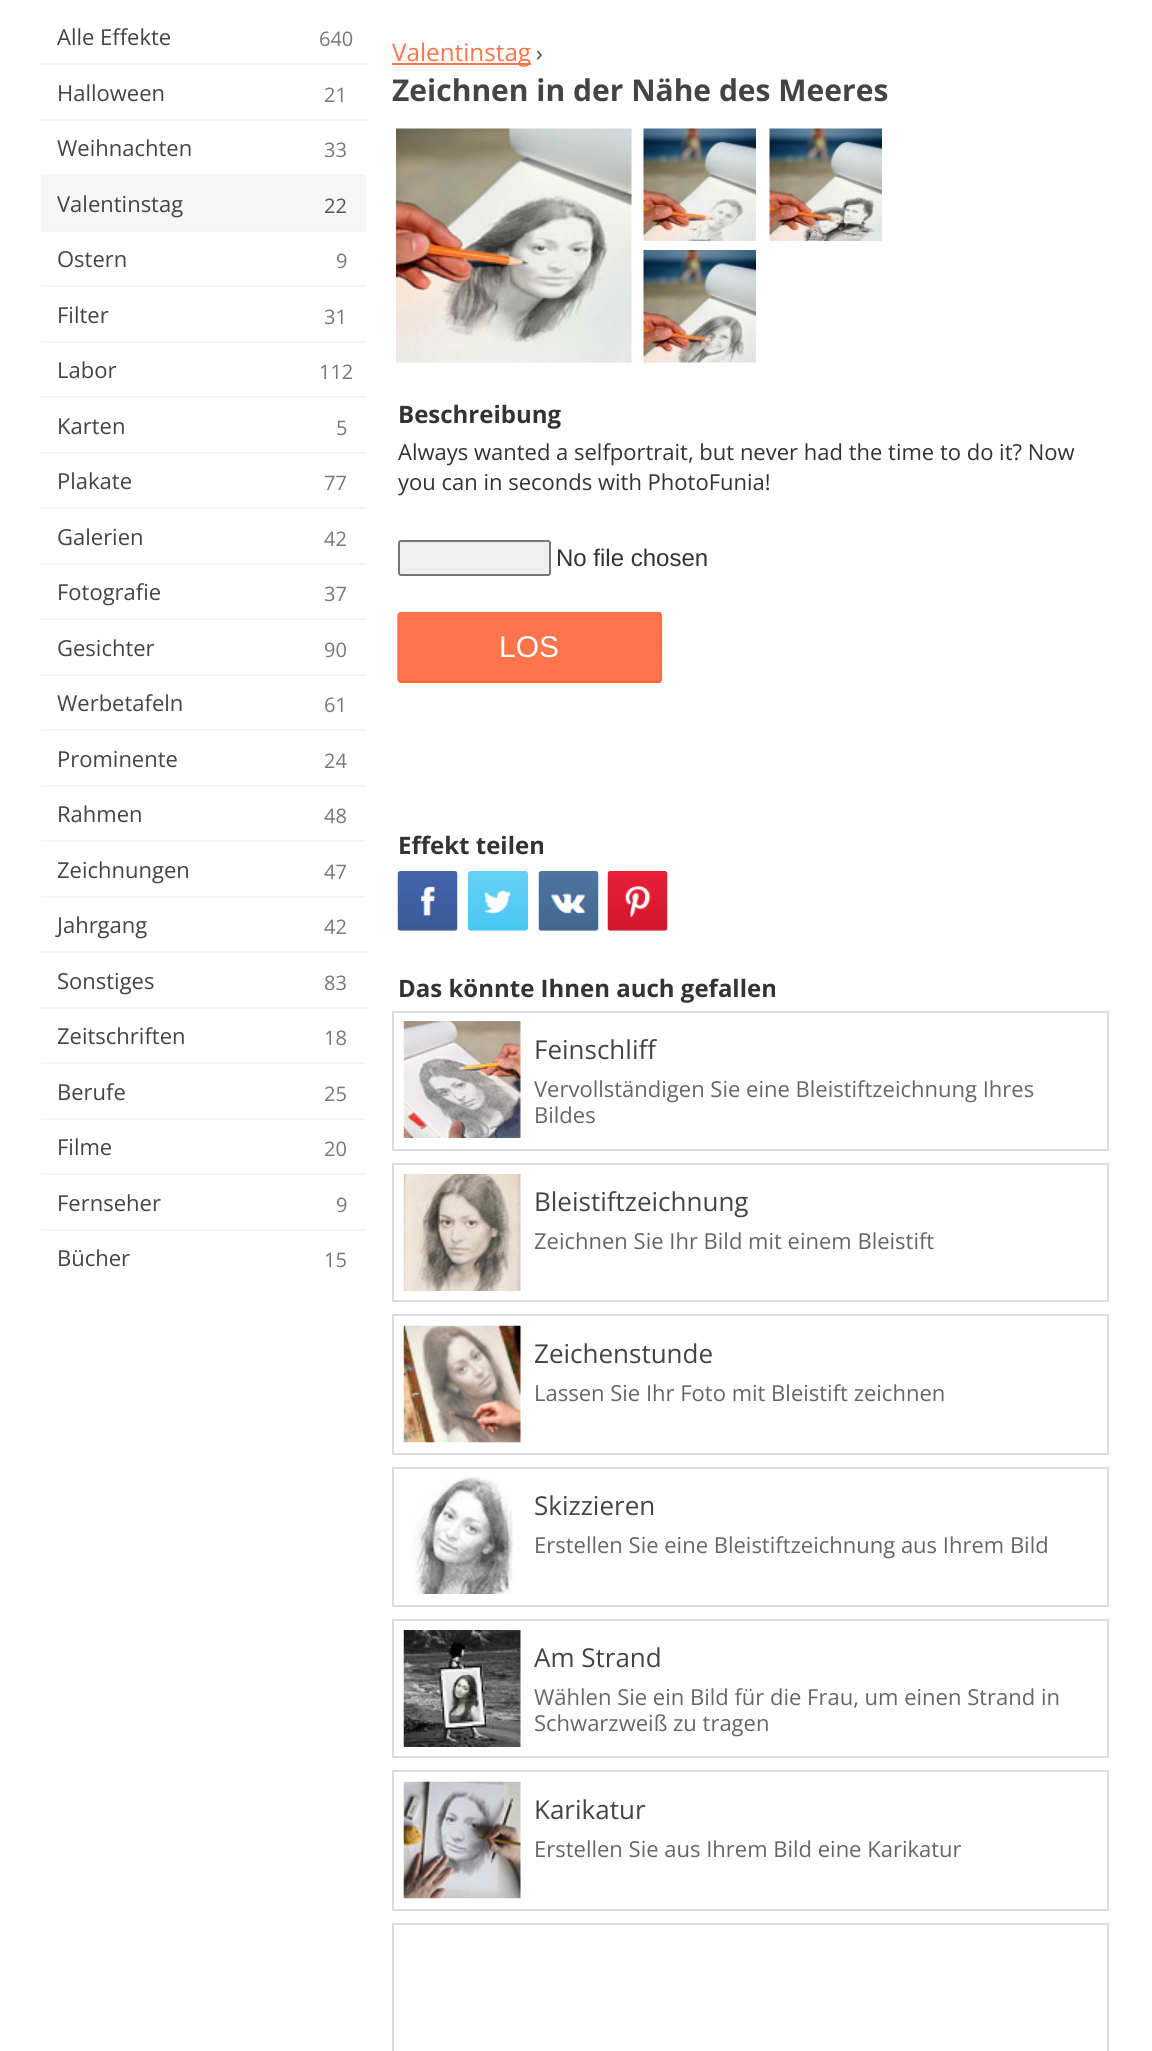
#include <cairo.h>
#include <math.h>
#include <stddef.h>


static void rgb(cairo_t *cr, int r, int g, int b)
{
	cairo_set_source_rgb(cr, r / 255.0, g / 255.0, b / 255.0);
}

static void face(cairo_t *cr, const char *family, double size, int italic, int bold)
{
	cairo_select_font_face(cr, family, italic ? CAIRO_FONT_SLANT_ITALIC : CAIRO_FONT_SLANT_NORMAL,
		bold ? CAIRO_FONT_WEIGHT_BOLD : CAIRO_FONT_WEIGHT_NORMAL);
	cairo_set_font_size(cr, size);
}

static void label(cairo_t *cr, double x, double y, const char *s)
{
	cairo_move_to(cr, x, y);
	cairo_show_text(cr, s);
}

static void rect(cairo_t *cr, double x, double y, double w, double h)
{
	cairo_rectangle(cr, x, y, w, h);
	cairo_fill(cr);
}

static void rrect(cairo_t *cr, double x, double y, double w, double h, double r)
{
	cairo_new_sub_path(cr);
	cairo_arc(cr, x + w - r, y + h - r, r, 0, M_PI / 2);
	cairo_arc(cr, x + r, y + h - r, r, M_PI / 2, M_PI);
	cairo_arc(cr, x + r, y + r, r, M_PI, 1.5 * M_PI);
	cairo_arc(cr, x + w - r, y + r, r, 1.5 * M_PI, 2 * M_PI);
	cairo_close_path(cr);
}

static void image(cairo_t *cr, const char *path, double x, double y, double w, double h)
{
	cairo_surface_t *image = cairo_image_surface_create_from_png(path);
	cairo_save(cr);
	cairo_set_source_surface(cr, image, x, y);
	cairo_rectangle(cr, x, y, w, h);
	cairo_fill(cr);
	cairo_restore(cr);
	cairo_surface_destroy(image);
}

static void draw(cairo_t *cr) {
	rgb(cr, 255, 255, 255);
	cairo_paint(cr);
	face(cr, "Open Sans", 22, 0, 0);
	rgb(cr, 68, 68, 68);
	label(cr, 57, 45, "Alle Effekte");
	face(cr, "Open Sans", 20, 0, 0);
	rgb(cr, 119, 119, 119);
	label(cr, 319, 46, "640");
	rgb(cr, 245, 245, 245);
	rect(cr, 41, 63, 325, 2);
	face(cr, "Open Sans", 22, 0, 0);
	rgb(cr, 68, 68, 68);
	label(cr, 57, 101, "Halloween");
	face(cr, "Open Sans", 20, 0, 0);
	rgb(cr, 119, 119, 119);
	label(cr, 324, 102, "21");
	rgb(cr, 245, 245, 245);
	rect(cr, 41, 119, 325, 2);
	face(cr, "Open Sans", 22, 0, 0);
	rgb(cr, 68, 68, 68);
	label(cr, 57, 156, "Weihnachten");
	face(cr, "Open Sans", 20, 0, 0);
	rgb(cr, 119, 119, 119);
	label(cr, 324, 157, "33");
	rgb(cr, 245, 245, 245);
	rect(cr, 41, 174, 325, 2);
	rgb(cr, 246, 246, 246);
	rect(cr, 41, 176, 325, 54);
	face(cr, "Open Sans", 22, 0, 0);
	rgb(cr, 68, 68, 68);
	label(cr, 57, 212, "Valentinstag");
	face(cr, "Open Sans", 20, 0, 0);
	rgb(cr, 85, 85, 85);
	label(cr, 324, 213, "22");
	rgb(cr, 245, 245, 245);
	rect(cr, 41, 230, 325, 2);
	face(cr, "Open Sans", 22, 0, 0);
	rgb(cr, 68, 68, 68);
	label(cr, 57, 267, "Ostern");
	face(cr, "Open Sans", 20, 0, 0);
	rgb(cr, 119, 119, 119);
	label(cr, 336, 268, "9");
	rgb(cr, 245, 245, 245);
	rect(cr, 41, 285, 325, 2);
	face(cr, "Open Sans", 22, 0, 0);
	rgb(cr, 68, 68, 68);
	label(cr, 57, 323, "Filter");
	face(cr, "Open Sans", 20, 0, 0);
	rgb(cr, 119, 119, 119);
	label(cr, 324, 324, "31");
	rgb(cr, 245, 245, 245);
	rect(cr, 41, 341, 325, 2);
	face(cr, "Open Sans", 22, 0, 0);
	rgb(cr, 68, 68, 68);
	label(cr, 57, 378, "Labor");
	face(cr, "Open Sans", 20, 0, 0);
	rgb(cr, 119, 119, 119);
	label(cr, 319, 379, "112");
	rgb(cr, 245, 245, 245);
	rect(cr, 41, 396, 325, 2);
	face(cr, "Open Sans", 22, 0, 0);
	rgb(cr, 68, 68, 68);
	label(cr, 57, 434, "Karten");
	face(cr, "Open Sans", 20, 0, 0);
	rgb(cr, 119, 119, 119);
	label(cr, 336, 435, "5");
	rgb(cr, 245, 245, 245);
	rect(cr, 41, 452, 325, 2);
	face(cr, "Open Sans", 22, 0, 0);
	rgb(cr, 68, 68, 68);
	label(cr, 57, 489, "Plakate");
	face(cr, "Open Sans", 20, 0, 0);
	rgb(cr, 119, 119, 119);
	label(cr, 324, 490, "77");
	rgb(cr, 245, 245, 245);
	rect(cr, 41, 507, 325, 2);
	face(cr, "Open Sans", 22, 0, 0);
	rgb(cr, 68, 68, 68);
	label(cr, 57, 545, "Galerien");
	face(cr, "Open Sans", 20, 0, 0);
	rgb(cr, 119, 119, 119);
	label(cr, 324, 546, "42");
	rgb(cr, 245, 245, 245);
	rect(cr, 41, 563, 325, 2);
	face(cr, "Open Sans", 22, 0, 0);
	rgb(cr, 68, 68, 68);
	label(cr, 57, 600, "Fotografie");
	face(cr, "Open Sans", 20, 0, 0);
	rgb(cr, 119, 119, 119);
	label(cr, 324, 601, "37");
	rgb(cr, 245, 245, 245);
	rect(cr, 41, 618, 325, 2);
	face(cr, "Open Sans", 22, 0, 0);
	rgb(cr, 68, 68, 68);
	label(cr, 57, 656, "Gesichter");
	face(cr, "Open Sans", 20, 0, 0);
	rgb(cr, 119, 119, 119);
	label(cr, 324, 657, "90");
	rgb(cr, 245, 245, 245);
	rect(cr, 41, 674, 325, 2);
	face(cr, "Open Sans", 22, 0, 0);
	rgb(cr, 68, 68, 68);
	label(cr, 57, 711, "Werbetafeln");
	face(cr, "Open Sans", 20, 0, 0);
	rgb(cr, 119, 119, 119);
	label(cr, 324, 712, "61");
	rgb(cr, 245, 245, 245);
	rect(cr, 41, 729, 325, 2);
	face(cr, "Open Sans", 22, 0, 0);
	rgb(cr, 68, 68, 68);
	label(cr, 57, 767, "Prominente");
	face(cr, "Open Sans", 20, 0, 0);
	rgb(cr, 119, 119, 119);
	label(cr, 324, 768, "24");
	rgb(cr, 245, 245, 245);
	rect(cr, 41, 785, 325, 2);
	face(cr, "Open Sans", 22, 0, 0);
	rgb(cr, 68, 68, 68);
	label(cr, 57, 822, "Rahmen");
	face(cr, "Open Sans", 20, 0, 0);
	rgb(cr, 119, 119, 119);
	label(cr, 324, 823, "48");
	rgb(cr, 245, 245, 245);
	rect(cr, 41, 840, 325, 2);
	face(cr, "Open Sans", 22, 0, 0);
	rgb(cr, 68, 68, 68);
	label(cr, 57, 878, "Zeichnungen");
	face(cr, "Open Sans", 20, 0, 0);
	rgb(cr, 119, 119, 119);
	label(cr, 324, 879, "47");
	rgb(cr, 245, 245, 245);
	rect(cr, 41, 896, 325, 2);
	face(cr, "Open Sans", 22, 0, 0);
	rgb(cr, 68, 68, 68);
	label(cr, 57, 933, "Jahrgang");
	face(cr, "Open Sans", 20, 0, 0);
	rgb(cr, 119, 119, 119);
	label(cr, 324, 934, "42");
	rgb(cr, 245, 245, 245);
	rect(cr, 41, 951, 325, 2);
	face(cr, "Open Sans", 22, 0, 0);
	rgb(cr, 68, 68, 68);
	label(cr, 57, 989, "Sonstiges");
	face(cr, "Open Sans", 20, 0, 0);
	rgb(cr, 119, 119, 119);
	label(cr, 324, 990, "83");
	rgb(cr, 245, 245, 245);
	rect(cr, 41, 1007, 325, 2);
	face(cr, "Open Sans", 22, 0, 0);
	rgb(cr, 68, 68, 68);
	label(cr, 57, 1044, "Zeitschriften");
	face(cr, "Open Sans", 20, 0, 0);
	rgb(cr, 119, 119, 119);
	label(cr, 324, 1045, "18");
	rgb(cr, 245, 245, 245);
	rect(cr, 41, 1062, 325, 2);
	face(cr, "Open Sans", 22, 0, 0);
	rgb(cr, 68, 68, 68);
	label(cr, 57, 1100, "Berufe");
	face(cr, "Open Sans", 20, 0, 0);
	rgb(cr, 119, 119, 119);
	label(cr, 324, 1101, "25");
	rgb(cr, 245, 245, 245);
	rect(cr, 41, 1118, 325, 2);
	face(cr, "Open Sans", 22, 0, 0);
	rgb(cr, 68, 68, 68);
	label(cr, 57, 1155, "Filme");
	face(cr, "Open Sans", 20, 0, 0);
	rgb(cr, 119, 119, 119);
	label(cr, 324, 1156, "20");
	rgb(cr, 245, 245, 245);
	rect(cr, 41, 1173, 325, 2);
	face(cr, "Open Sans", 22, 0, 0);
	rgb(cr, 68, 68, 68);
	label(cr, 57, 1211, "Fernseher");
	face(cr, "Open Sans", 20, 0, 0);
	rgb(cr, 119, 119, 119);
	label(cr, 336, 1212, "9");
	rgb(cr, 245, 245, 245);
	rect(cr, 41, 1229, 325, 2);
	face(cr, "Open Sans", 22, 0, 0);
	rgb(cr, 68, 68, 68);
	label(cr, 57, 1266, "Bücher");
	face(cr, "Open Sans", 20, 0, 0);
	rgb(cr, 119, 119, 119);
	label(cr, 324, 1267, "15");
	rgb(cr, 255, 117, 75);
	rect(cr, 392, 63, 139, 2);
	face(cr, "Open Sans", 24.25, 0, 0);
	label(cr, 392, 61, "Valentinstag");
	face(cr, "Open Sans", 22, 0, 0);
	rgb(cr, 68, 68, 68);
	label(cr, 536, 61, "›");
	face(cr, "Open Sans", 30, 0, 1);
	label(cr, 392, 101, "Zeichnen in der Nähe des Meeres");
	image(cr, "image0.png", 396, 128, 236, 235);
	image(cr, "image1.png", 643, 128, 113, 113);
	image(cr, "image2.png", 769, 128, 113, 113);
	image(cr, "image3.png", 643, 250, 113, 113);
	face(cr, "Open Sans", 24, 0, 1);
	rgb(cr, 51, 51, 51);
	label(cr, 398, 423, "Beschreibung");
	face(cr, "Open Sans", 22, 0, 0);
	label(cr, 398, 460, "Always wanted a selfportrait, but never had the time to do it? Now");
	label(cr, 398, 490, "you can in seconds with PhotoFunia!");
	rgb(cr, 239, 239, 239);
	rrect(cr, 399, 541, 151, 34, 2);
	cairo_fill_preserve(cr);
	rgb(cr, 118, 118, 118);
	cairo_stroke(cr);
	face(cr, "Liberation Sans", 24, 0, 0);
	rgb(cr, 51, 51, 51);
	label(cr, 556, 566, "No file chosen");
	rgb(cr, 255, 117, 75);
	rrect(cr, 398, 612, 264, 71, 3);
	cairo_fill(cr);
	cairo_new_path(cr);
	cairo_move_to(cr, 660, 613.5);
	cairo_curve_to(cr, 661.5, 615.5, 661, 662.5, 661, 669);
	cairo_line_to(cr, 661, 679.5);
	cairo_line_to(cr, 660, 681);
	rgb(cr, 255, 105, 60);
	cairo_set_line_width(cr, 1.5);
	cairo_stroke(cr);
	cairo_new_path(cr);
	cairo_move_to(cr, 660, 681);
	cairo_line_to(cr, 658.5, 682);
	cairo_line_to(cr, 400.5, 682);
	cairo_line_to(cr, 399, 681);
	rgb(cr, 255, 94, 44);
	cairo_stroke(cr);
	cairo_new_path(cr);
	cairo_move_to(cr, 399, 681);
	cairo_line_to(cr, 398, 679.5);
	cairo_line_to(cr, 398, 615);
	cairo_line_to(cr, 399, 613.5);
	cairo_line_to(cr, 400.5, 613);
	cairo_line_to(cr, 658.5, 613);
	cairo_line_to(cr, 660, 613.5);
	rgb(cr, 255, 113, 70);
	cairo_stroke(cr);
	face(cr, "Liberation Sans", 30, 0, 0);
	rgb(cr, 255, 255, 255);
	label(cr, 499, 657, "LOS");
	face(cr, "Open Sans", 24, 0, 1);
	rgb(cr, 51, 51, 51);
	label(cr, 398, 854, "Effekt teilen");
	image(cr, "image4.png", 397, 871, 61, 60);
	image(cr, "image5.png", 468, 871, 60, 60);
	image(cr, "image6.png", 538, 871, 61, 60);
	image(cr, "image7.png", 607, 871, 61, 60);
	label(cr, 398, 997, "Das könnte Ihnen auch gefallen");
	cairo_rectangle(cr, 393, 1012, 715, 138);
	rgb(cr, 221, 221, 221);
	cairo_set_line_width(cr, 2);
	cairo_stroke(cr);
	image(cr, "image8.png", 403, 1021, 118, 117);
	face(cr, "Open Sans", 26, 0, 0);
	rgb(cr, 68, 68, 68);
	label(cr, 534, 1059, "Feinschliff");
	face(cr, "Open Sans", 22, 0, 0);
	rgb(cr, 102, 102, 102);
	label(cr, 534, 1097, "Vervollständigen Sie eine Bleistiftzeichnung Ihres");
	label(cr, 534, 1123, "Bildes");
	cairo_rectangle(cr, 393, 1164, 715, 137);
	rgb(cr, 221, 221, 221);
	cairo_stroke(cr);
	image(cr, "image9.png", 403, 1174, 118, 117);
	face(cr, "Open Sans", 26, 0, 0);
	rgb(cr, 68, 68, 68);
	label(cr, 534, 1211, "Bleistiftzeichnung");
	face(cr, "Open Sans", 22, 0, 0);
	rgb(cr, 102, 102, 102);
	label(cr, 534, 1249, "Zeichnen Sie Ihr Bild mit einem Bleistift");
	cairo_rectangle(cr, 393, 1315, 715, 139);
	rgb(cr, 221, 221, 221);
	cairo_stroke(cr);
	image(cr, "image10.png", 403, 1325, 118, 118);
	face(cr, "Open Sans", 26, 0, 0);
	rgb(cr, 68, 68, 68);
	label(cr, 534, 1363, "Zeichenstunde");
	face(cr, "Open Sans", 22, 0, 0);
	rgb(cr, 102, 102, 102);
	label(cr, 534, 1401, "Lassen Sie Ihr Foto mit Bleistift zeichnen");
	cairo_rectangle(cr, 393, 1468, 715, 138);
	rgb(cr, 221, 221, 221);
	cairo_stroke(cr);
	image(cr, "image11.png", 412, 1477, 102, 117);
	face(cr, "Open Sans", 26, 0, 0);
	rgb(cr, 68, 68, 68);
	label(cr, 534, 1515, "Skizzieren");
	face(cr, "Open Sans", 22, 0, 0);
	rgb(cr, 102, 102, 102);
	label(cr, 534, 1553, "Erstellen Sie eine Bleistiftzeichnung aus Ihrem Bild");
	cairo_rectangle(cr, 393, 1620, 715, 137);
	rgb(cr, 221, 221, 221);
	cairo_stroke(cr);
	image(cr, "image12.png", 403, 1630, 118, 117);
	face(cr, "Open Sans", 26, 0, 0);
	rgb(cr, 68, 68, 68);
	label(cr, 534, 1667, "Am Strand");
	face(cr, "Open Sans", 22, 0, 0);
	rgb(cr, 102, 102, 102);
	label(cr, 534, 1705, "Wählen Sie ein Bild für die Frau, um einen Strand in");
	label(cr, 534, 1731, "Schwarzweiß zu tragen");
	cairo_rectangle(cr, 393, 1771, 715, 139);
	rgb(cr, 221, 221, 221);
	cairo_stroke(cr);
	image(cr, "image13.png", 403, 1781, 118, 118);
	face(cr, "Open Sans", 26, 0, 0);
	rgb(cr, 68, 68, 68);
	label(cr, 534, 1819, "Karikatur");
	face(cr, "Open Sans", 22, 0, 0);
	rgb(cr, 102, 102, 102);
	label(cr, 534, 1857, "Erstellen Sie aus Ihrem Bild eine Karikatur");
	cairo_rectangle(cr, 393, 1924, 715, 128);
	rgb(cr, 221, 221, 221);
	cairo_stroke(cr);
}

int main(void) {
	cairo_surface_t *surface = cairo_image_surface_create(CAIRO_FORMAT_RGB24, 1152, 2051);
	cairo_t *cr = cairo_create(surface);
	cairo_font_options_t *options = cairo_font_options_create();
	cairo_font_options_set_hint_metrics(options, CAIRO_HINT_METRICS_OFF);
	cairo_font_options_set_hint_style(options, CAIRO_HINT_STYLE_NONE);
	cairo_set_font_options(cr, options);
	cairo_set_miter_limit(cr, 4);
	draw(cr);
	cairo_surface_write_to_png(surface, "render.png");
	cairo_font_options_destroy(options);
	cairo_destroy(cr);
	cairo_surface_destroy(surface);
	return 0;
}
